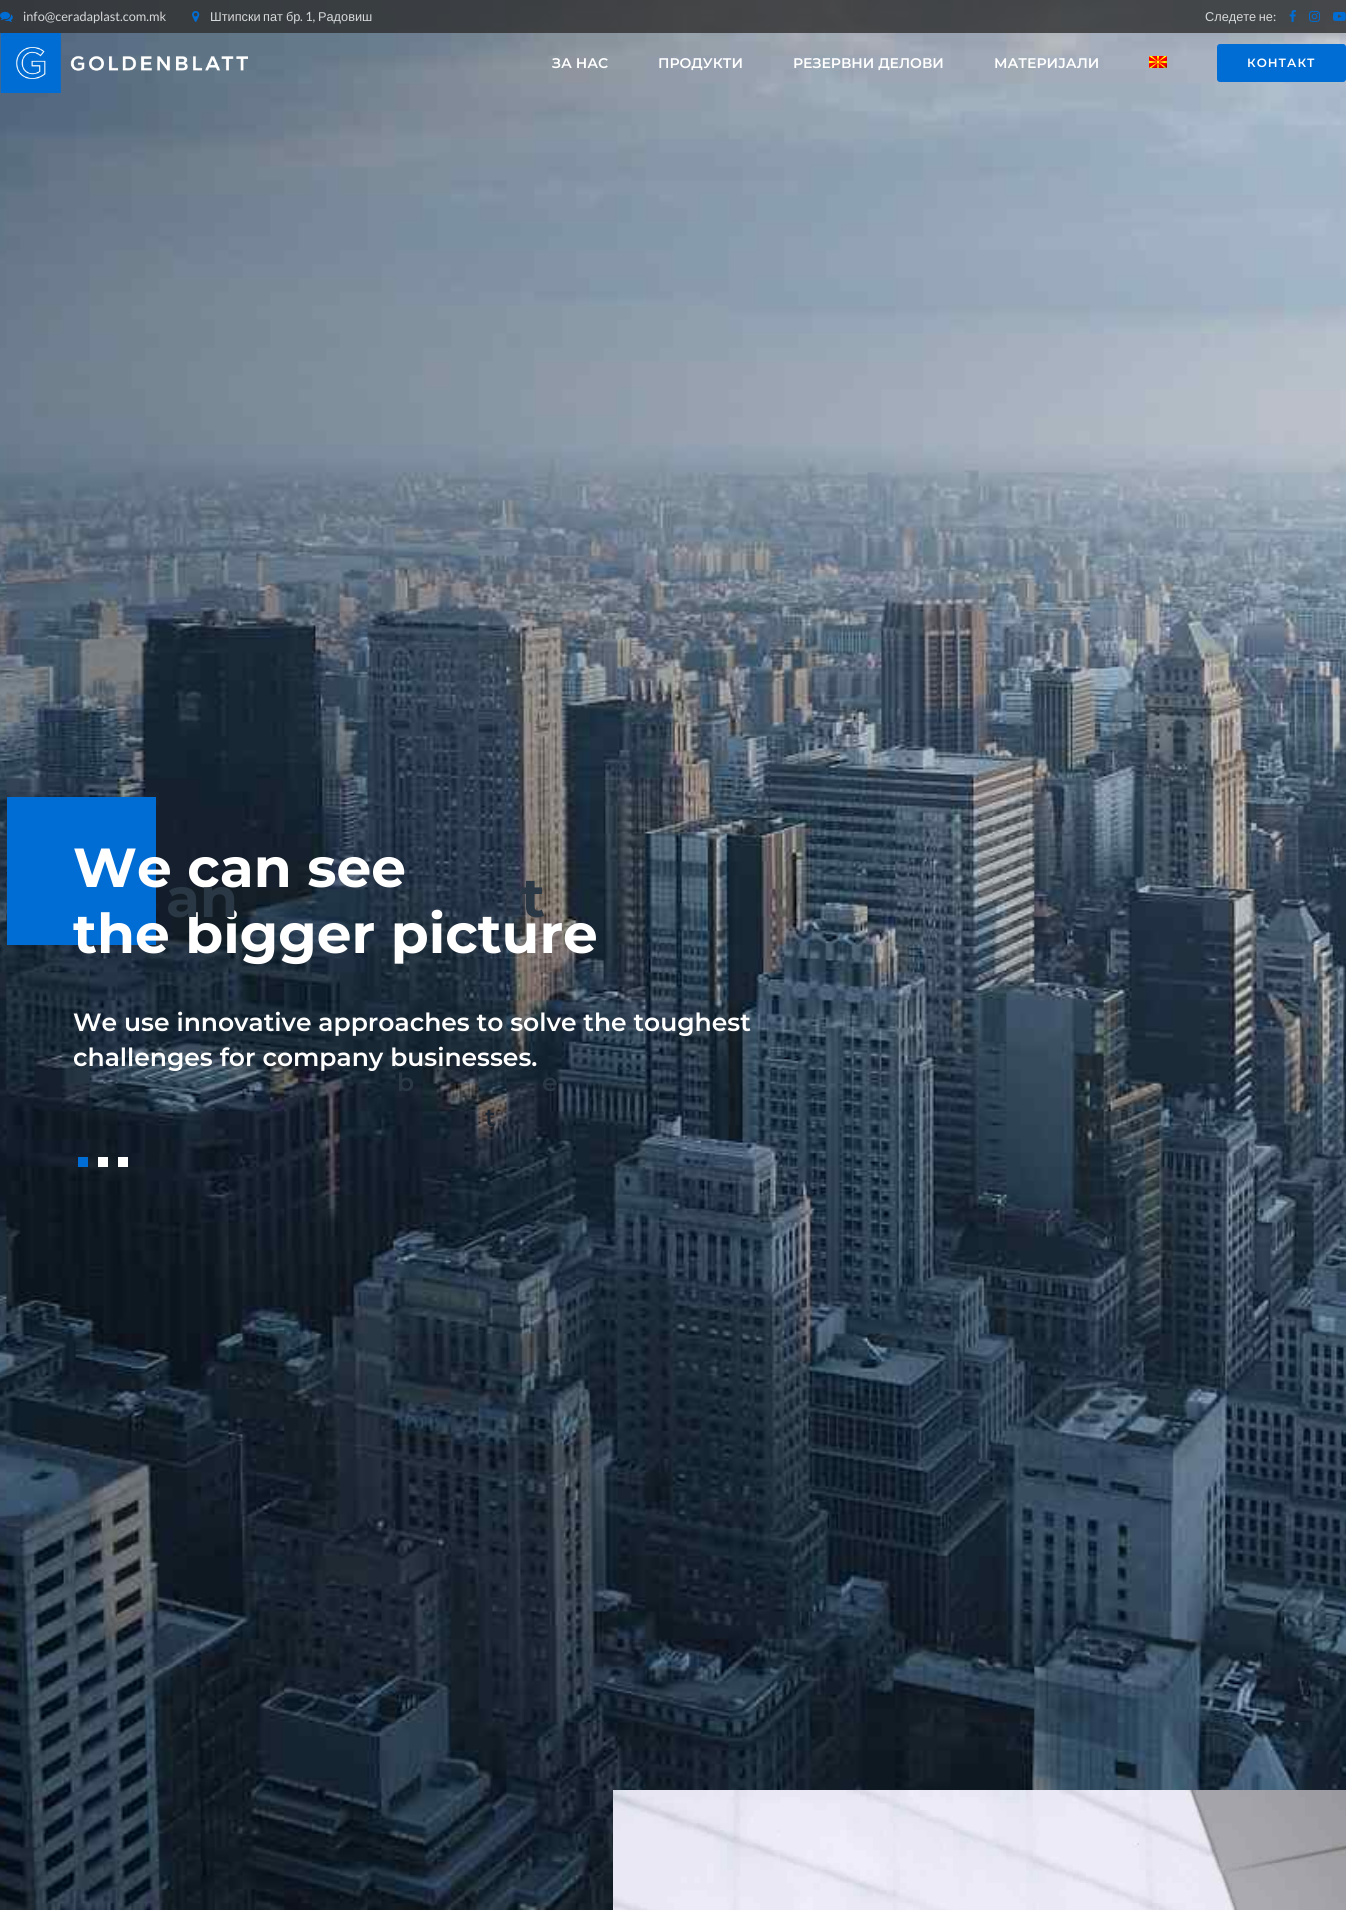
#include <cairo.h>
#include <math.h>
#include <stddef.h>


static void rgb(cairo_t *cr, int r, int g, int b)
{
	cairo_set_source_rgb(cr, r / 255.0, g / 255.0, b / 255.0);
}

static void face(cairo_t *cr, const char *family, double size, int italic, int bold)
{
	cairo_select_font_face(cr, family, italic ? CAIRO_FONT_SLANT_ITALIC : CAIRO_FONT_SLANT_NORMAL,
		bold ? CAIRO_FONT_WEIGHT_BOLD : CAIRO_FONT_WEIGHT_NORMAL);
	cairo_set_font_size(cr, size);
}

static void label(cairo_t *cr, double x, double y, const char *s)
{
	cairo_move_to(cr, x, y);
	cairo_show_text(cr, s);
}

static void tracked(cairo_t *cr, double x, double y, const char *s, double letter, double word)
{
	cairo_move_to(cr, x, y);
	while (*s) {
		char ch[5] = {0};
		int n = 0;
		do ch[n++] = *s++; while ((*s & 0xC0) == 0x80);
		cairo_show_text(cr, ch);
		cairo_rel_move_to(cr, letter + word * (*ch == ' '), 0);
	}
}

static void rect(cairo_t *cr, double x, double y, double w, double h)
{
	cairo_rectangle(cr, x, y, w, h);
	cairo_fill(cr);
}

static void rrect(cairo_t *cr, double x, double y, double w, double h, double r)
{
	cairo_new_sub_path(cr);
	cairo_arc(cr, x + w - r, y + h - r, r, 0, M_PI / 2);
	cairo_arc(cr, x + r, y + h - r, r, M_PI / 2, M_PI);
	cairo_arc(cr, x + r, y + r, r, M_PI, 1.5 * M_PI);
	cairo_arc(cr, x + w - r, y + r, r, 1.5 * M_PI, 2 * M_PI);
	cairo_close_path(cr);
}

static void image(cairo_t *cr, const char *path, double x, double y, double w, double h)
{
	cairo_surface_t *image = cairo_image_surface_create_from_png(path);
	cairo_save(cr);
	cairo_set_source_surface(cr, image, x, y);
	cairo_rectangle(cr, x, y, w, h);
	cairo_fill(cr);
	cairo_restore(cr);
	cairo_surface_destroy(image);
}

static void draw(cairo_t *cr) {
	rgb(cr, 255, 255, 255);
	cairo_paint(cr);
	image(cr, "image7.png", 0, 0, 1346, 1910);
	cairo_set_source_rgba(cr, 0.184, 0.184, 0.184, 0.8);
	rect(cr, 0, 0, 1346, 33);
	image(cr, "image0.png", 0, 11, 13, 11);
	face(cr, "Lato", 12.75, 0, 0);
	rgb(cr, 215, 216, 217);
	label(cr, 23, 21, "info@ceradaplast.com.mk");
	image(cr, "image1.png", 192, 11, 8, 11);
	face(cr, "Liberation Sans", 12.75, 0, 0);
	label(cr, 210, 21, "Штипски");
	label(cr, 263, 21, "пат");
	label(cr, 286, 21, "бр");
	face(cr, "Lato", 12.75, 0, 0);
	label(cr, 300, 21, ". 1,");
	face(cr, "Liberation Sans", 12.75, 0, 0);
	label(cr, 318, 21, "Радовиш");
	tracked(cr, 1205, 21, "Следете не", 0, -1);
	face(cr, "Lato", 12.75, 0, 0);
	label(cr, 1273, 21, ":");
	image(cr, "image2.png", 1289, 10, 7, 12);
	image(cr, "image3.png", 1309, 10, 11, 12);
	image(cr, "image4.png", 1333, 11, 13, 10);
	image(cr, "image5.png", 0, 33, 248, 60);
	face(cr, "Montserrat SemiBold", 14, 0, 0);
	rgb(cr, 255, 255, 255);
	label(cr, 552, 68, "ЗА НАС");
	label(cr, 658, 68, "ПРОДУКТИ");
	label(cr, 793, 68, "РЕЗЕРВНИ ДЕЛОВИ");
	label(cr, 994, 68, "МАТЕРИЈАЛИ");
	image(cr, "image6.png", 1149, 56, 18, 12);
	rgb(cr, 0, 109, 212);
	rrect(cr, 1217, 44, 129, 38, 3);
	cairo_fill(cr);
	face(cr, "Montserrat SemiBold", 12, 0, 0);
	rgb(cr, 255, 255, 255);
	tracked(cr, 1247, 67, "КОНТАКТ", 1, 0);
	rgb(cr, 0, 109, 212);
	rect(cr, 7, 797, 149, 148);
	face(cr, "Montserrat", 55, 0, 1);
	rgb(cr, 255, 255, 255);
	label(cr, 73, 887, "We can see");
	label(cr, 73, 953, "the bigger picture");
	face(cr, "Montserrat SemiBold", 25, 0, 0);
	label(cr, 73, 1031, "We use innovative approaches to solve the toughest");
	label(cr, 73, 1066, "challenges for company businesses.");
	face(cr, "Montserrat", 55, 0, 1);
	rgb(cr, 42, 55, 68);
	label(cr, 166, 917, "an");
	label(cr, 521, 917, "t");
	face(cr, "Montserrat SemiBold", 25, 0, 0);
	label(cr, 397, 1091, "b");
	label(cr, 542, 1091, "e");
	rgb(cr, 28, 38, 51);
	label(cr, 485, 1126, "t");
	rgb(cr, 0, 109, 212);
	rect(cr, 78, 1157, 10, 10);
	rgb(cr, 255, 255, 255);
	rect(cr, 98, 1157, 10, 10);
	rect(cr, 118, 1157, 10, 10);
	image(cr, "image8.png", 613, 1790, 733, 120);
}

int main(void) {
	cairo_surface_t *surface = cairo_image_surface_create(CAIRO_FORMAT_RGB24, 1346, 1910);
	cairo_t *cr = cairo_create(surface);
	cairo_font_options_t *options = cairo_font_options_create();
	cairo_font_options_set_hint_metrics(options, CAIRO_HINT_METRICS_OFF);
	cairo_font_options_set_hint_style(options, CAIRO_HINT_STYLE_NONE);
	cairo_set_font_options(cr, options);
	cairo_set_miter_limit(cr, 4);
	draw(cr);
	cairo_surface_write_to_png(surface, "render.png");
	cairo_font_options_destroy(options);
	cairo_destroy(cr);
	cairo_surface_destroy(surface);
	return 0;
}
